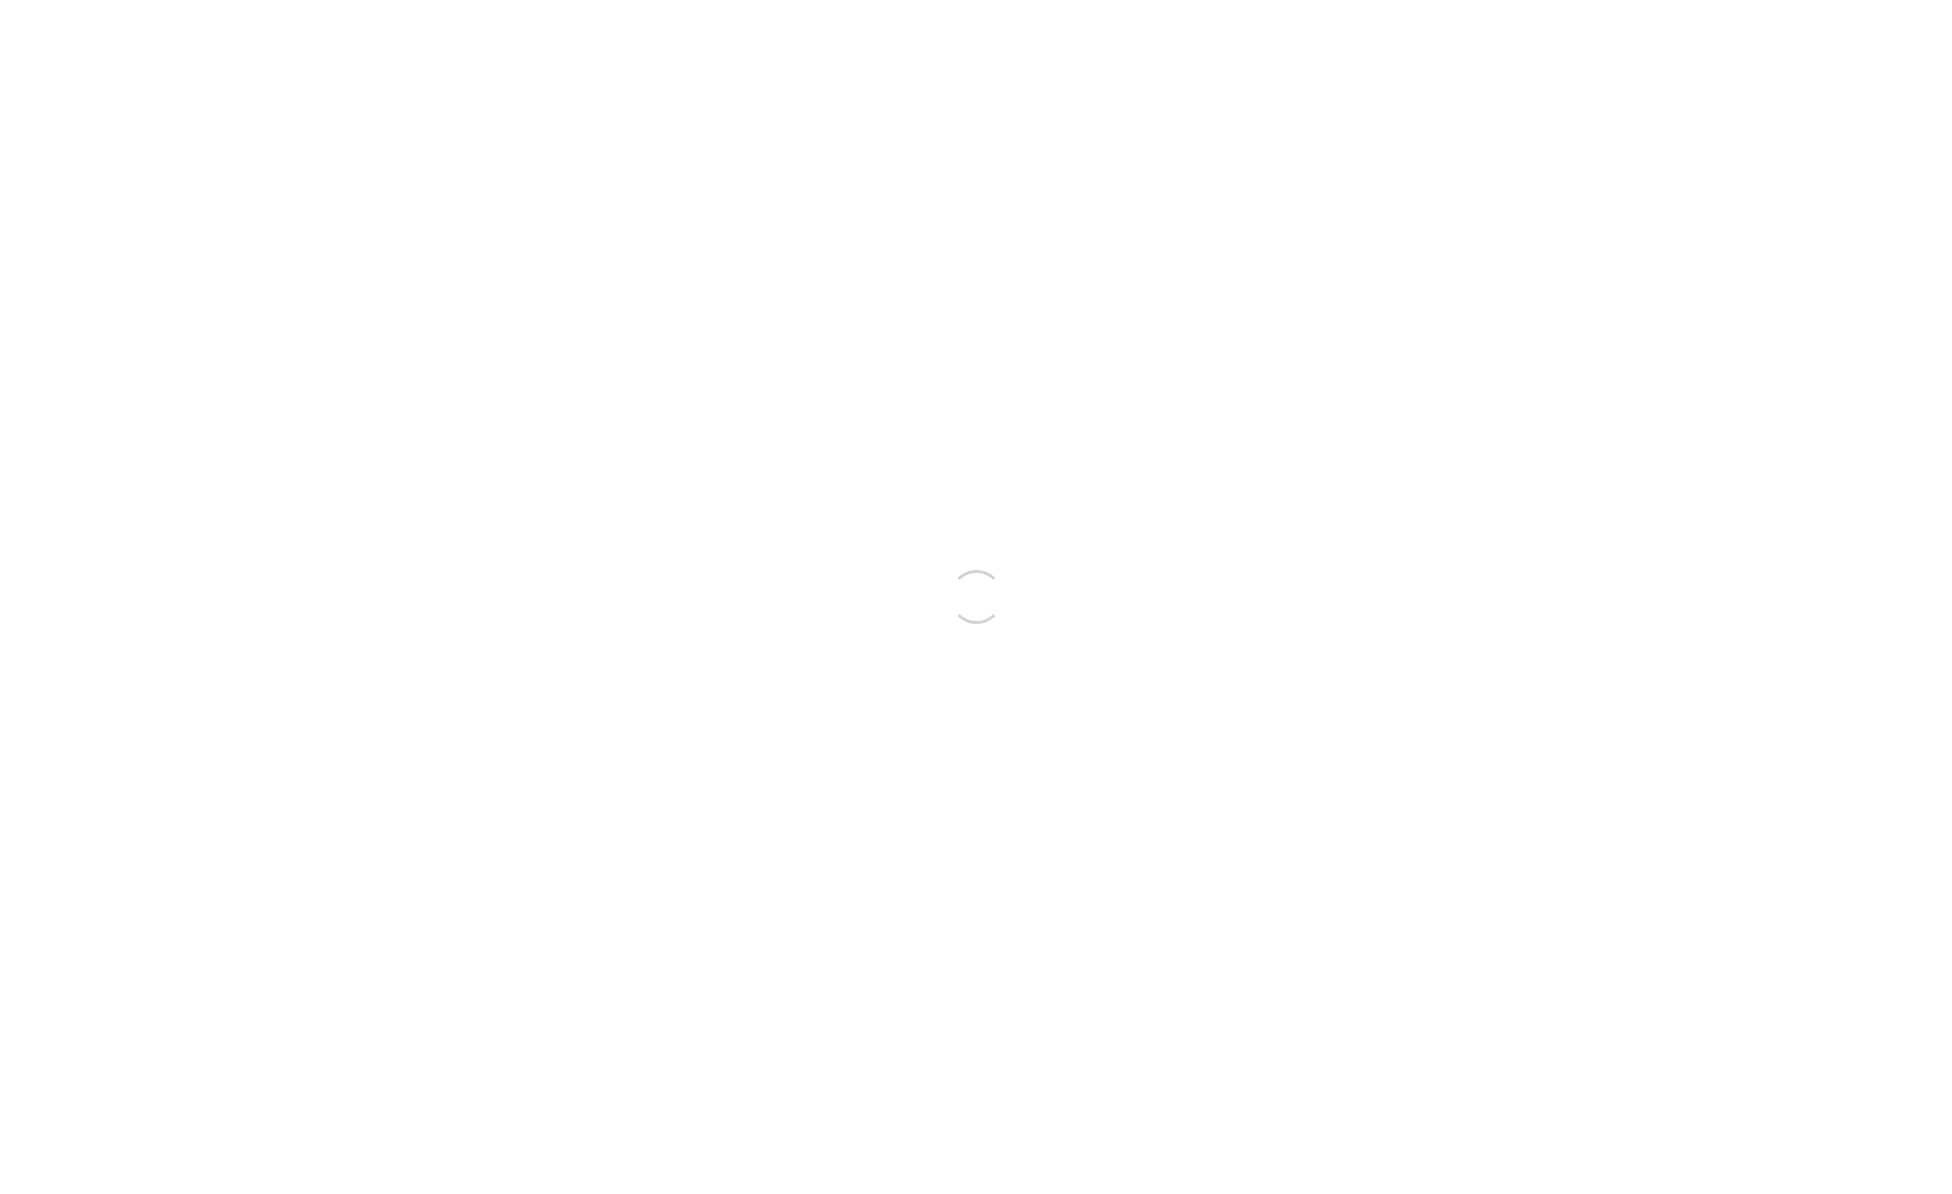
#include <cairo.h>
#include <math.h>
#include <stddef.h>


static void rgb(cairo_t *cr, int r, int g, int b)
{
	cairo_set_source_rgb(cr, r / 255.0, g / 255.0, b / 255.0);
}

static void draw(cairo_t *cr) {
	rgb(cr, 255, 255, 255);
	cairo_paint(cr);
	cairo_new_path(cr);
	cairo_move_to(cr, 958.5, 579);
	cairo_curve_to(cr, 968.5, 569, 984.5, 569, 994.5, 579);
	cairo_move_to(cr, 994.5, 615);
	cairo_curve_to(cr, 984.5, 625, 968.5, 625, 958.5, 615);
	rgb(cr, 211, 211, 211);
	cairo_set_line_width(cr, 3);
	cairo_stroke(cr);
}

int main(void) {
	cairo_surface_t *surface = cairo_image_surface_create(CAIRO_FORMAT_RGB24, 1952, 1194);
	cairo_t *cr = cairo_create(surface);
	cairo_font_options_t *options = cairo_font_options_create();
	cairo_font_options_set_hint_metrics(options, CAIRO_HINT_METRICS_OFF);
	cairo_font_options_set_hint_style(options, CAIRO_HINT_STYLE_NONE);
	cairo_set_font_options(cr, options);
	cairo_set_miter_limit(cr, 4);
	draw(cr);
	cairo_surface_write_to_png(surface, "render.png");
	cairo_font_options_destroy(options);
	cairo_destroy(cr);
	cairo_surface_destroy(surface);
	return 0;
}
